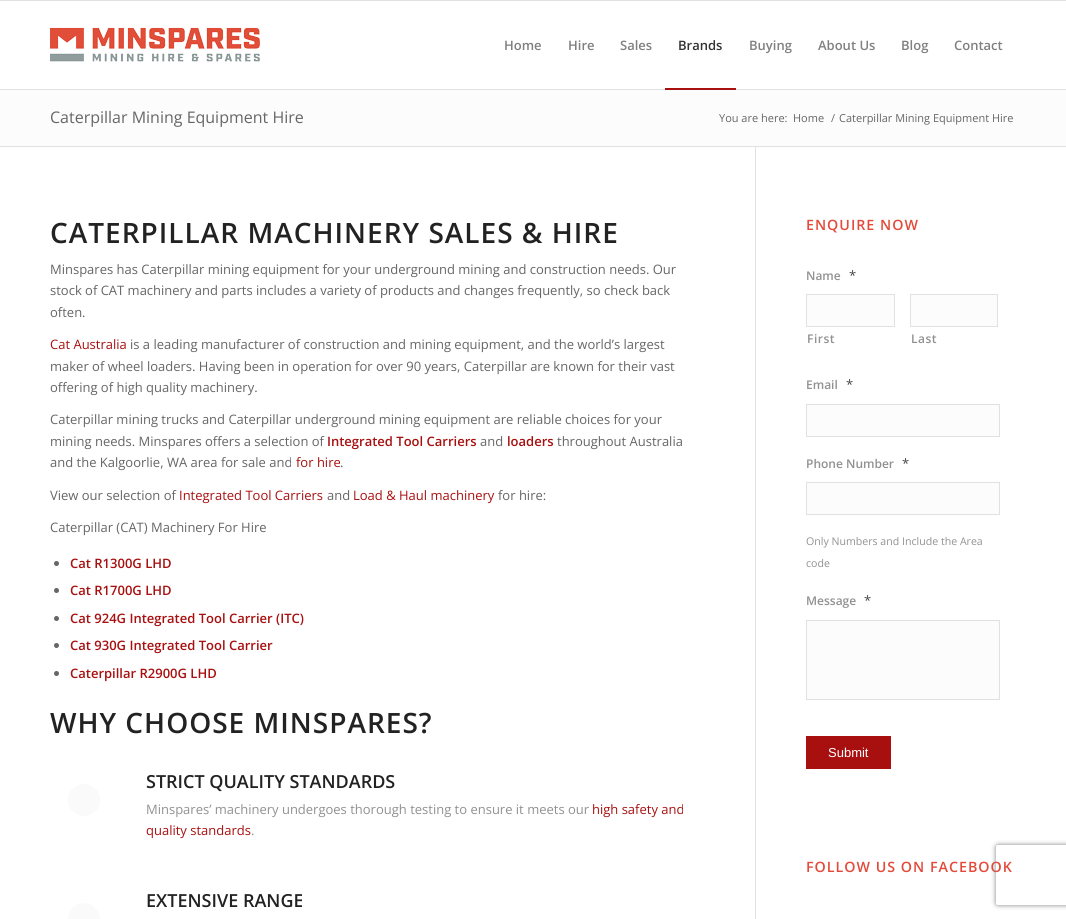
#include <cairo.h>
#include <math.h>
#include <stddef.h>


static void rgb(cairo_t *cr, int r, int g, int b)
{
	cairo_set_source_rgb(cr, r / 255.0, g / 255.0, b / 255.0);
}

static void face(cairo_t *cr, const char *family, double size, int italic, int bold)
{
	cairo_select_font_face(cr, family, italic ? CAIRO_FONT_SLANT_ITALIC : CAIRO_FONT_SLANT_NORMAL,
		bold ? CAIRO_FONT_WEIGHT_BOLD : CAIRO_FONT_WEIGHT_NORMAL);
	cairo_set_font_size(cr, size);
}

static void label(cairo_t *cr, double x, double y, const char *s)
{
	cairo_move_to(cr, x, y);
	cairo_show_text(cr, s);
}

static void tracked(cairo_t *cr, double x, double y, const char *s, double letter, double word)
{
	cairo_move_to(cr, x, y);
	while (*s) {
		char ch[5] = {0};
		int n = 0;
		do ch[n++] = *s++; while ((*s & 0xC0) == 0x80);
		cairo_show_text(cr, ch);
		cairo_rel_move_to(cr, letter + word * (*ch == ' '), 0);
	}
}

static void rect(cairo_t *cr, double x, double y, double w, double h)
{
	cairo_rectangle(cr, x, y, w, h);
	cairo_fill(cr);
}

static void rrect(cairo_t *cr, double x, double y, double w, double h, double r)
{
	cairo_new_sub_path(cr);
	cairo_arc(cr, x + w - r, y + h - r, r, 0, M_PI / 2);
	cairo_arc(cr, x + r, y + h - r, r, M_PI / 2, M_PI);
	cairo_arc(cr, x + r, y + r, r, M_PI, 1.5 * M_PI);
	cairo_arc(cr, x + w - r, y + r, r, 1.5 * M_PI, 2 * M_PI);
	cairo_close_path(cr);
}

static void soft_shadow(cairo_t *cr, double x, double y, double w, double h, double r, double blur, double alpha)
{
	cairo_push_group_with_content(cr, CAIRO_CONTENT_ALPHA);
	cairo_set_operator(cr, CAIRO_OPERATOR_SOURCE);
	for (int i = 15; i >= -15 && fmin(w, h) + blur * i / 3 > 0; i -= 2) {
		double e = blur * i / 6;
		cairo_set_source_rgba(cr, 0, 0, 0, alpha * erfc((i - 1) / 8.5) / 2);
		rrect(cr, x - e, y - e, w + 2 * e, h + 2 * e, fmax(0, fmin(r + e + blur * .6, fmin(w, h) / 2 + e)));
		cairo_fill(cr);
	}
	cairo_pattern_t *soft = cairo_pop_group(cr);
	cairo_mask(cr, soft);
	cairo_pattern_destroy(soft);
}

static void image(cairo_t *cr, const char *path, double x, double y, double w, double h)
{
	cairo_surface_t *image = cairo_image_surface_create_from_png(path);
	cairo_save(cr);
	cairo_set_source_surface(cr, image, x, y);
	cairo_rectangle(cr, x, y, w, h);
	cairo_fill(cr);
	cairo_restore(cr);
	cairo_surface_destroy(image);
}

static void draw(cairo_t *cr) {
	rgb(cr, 255, 255, 255);
	cairo_paint(cr);
	rgb(cr, 225, 225, 225);
	rect(cr, 0, 0, 1066, 1);
	rect(cr, 0, 89, 1066, 1);
	image(cr, "image0.png", 50, 27, 210, 35);
	face(cr, "Open Sans SemiBold", 13, 0, 0);
	rgb(cr, 128, 128, 128);
	label(cr, 504, 50, "Home");
	label(cr, 568, 50, "Hire");
	label(cr, 620, 50, "Sales");
	rgb(cr, 51, 51, 51);
	label(cr, 678, 50, "Brands");
	rgb(cr, 168, 16, 16);
	rect(cr, 665, 88, 71, 2);
	rgb(cr, 128, 128, 128);
	label(cr, 749, 50, "Buying");
	label(cr, 818, 50, "About Us");
	label(cr, 901, 50, "Blog");
	label(cr, 954, 50, "Contact");
	rgb(cr, 252, 252, 252);
	rect(cr, 0, 90, 1066, 56);
	face(cr, "Open Sans", 16, 0, 0);
	rgb(cr, 102, 102, 102);
	label(cr, 50, 123, "Caterpillar Mining Equipment Hire");
	face(cr, "Open Sans", 11, 0, 0);
	label(cr, 719, 122, "You are here:");
	label(cr, 793, 122, "Home");
	label(cr, 831, 122, "/");
	label(cr, 839, 122, "Caterpillar Mining Equipment Hire");
	rgb(cr, 225, 225, 225);
	rect(cr, 0, 146, 1066, 1);
	rect(cr, 755, 147, 1, 772);
	face(cr, "Open Sans SemiBold", 28, 0, 0);
	rgb(cr, 34, 34, 34);
	tracked(cr, 50, 243, "CATERPILLAR MACHINERY SALES & HIRE", 1, 0);
	face(cr, "Open Sans", 13, 0, 0);
	rgb(cr, 102, 102, 102);
	label(cr, 50, 274, "Minspares has Caterpillar mining equipment for your underground mining and construction needs. Our");
	label(cr, 50, 295, "stock of CAT machinery and parts includes a variety of products and changes frequently, so check back");
	label(cr, 50, 317, "often.");
	rgb(cr, 168, 16, 16);
	label(cr, 50, 349, "Cat Australia");
	rgb(cr, 102, 102, 102);
	label(cr, 130, 349, "is a leading manufacturer of construction and mining equipment, and the world’s largest");
	label(cr, 50, 371, "maker of wheel loaders. Having been in operation for over 90 years, Caterpillar are known for their vast");
	label(cr, 50, 392, "offering of high quality machinery.");
	label(cr, 50, 424, "Caterpillar mining trucks and Caterpillar underground mining equipment are reliable choices for your");
	label(cr, 50, 446, "mining needs. Minspares offers a selection of");
	face(cr, "Open Sans SemiBold", 13, 0, 0);
	rgb(cr, 168, 16, 16);
	label(cr, 327, 446, "Integrated Tool Carriers");
	face(cr, "Open Sans", 13, 0, 0);
	rgb(cr, 102, 102, 102);
	label(cr, 480, 446, "and");
	face(cr, "Open Sans SemiBold", 13, 0, 0);
	rgb(cr, 168, 16, 16);
	label(cr, 507, 446, "loaders");
	face(cr, "Open Sans", 13, 0, 0);
	rgb(cr, 102, 102, 102);
	label(cr, 557, 446, "throughout Australia");
	label(cr, 50, 467, "and the Kalgoorlie, WA area for sale and");
	rgb(cr, 168, 16, 16);
	label(cr, 296, 467, "for hire");
	rgb(cr, 102, 102, 102);
	label(cr, 340, 467, ".");
	label(cr, 50, 500, "View our selection of");
	rgb(cr, 168, 16, 16);
	label(cr, 179, 500, "Integrated Tool Carriers");
	rgb(cr, 102, 102, 102);
	label(cr, 327, 500, "and");
	rgb(cr, 168, 16, 16);
	label(cr, 353, 500, "Load & Haul machinery");
	rgb(cr, 102, 102, 102);
	label(cr, 498, 500, "for hire:");
	label(cr, 50, 532, "Caterpillar (CAT) Machinery For Hire");
	cairo_new_path(cr);
	cairo_arc(cr, 56.5, 563.5, 2.5, 0, 2 * M_PI);
	cairo_fill(cr);
	face(cr, "Open Sans SemiBold", 13, 0, 0);
	rgb(cr, 168, 16, 16);
	label(cr, 70, 568, "Cat R1300G LHD");
	rgb(cr, 102, 102, 102);
	cairo_new_path(cr);
	cairo_arc(cr, 56.5, 590.5, 2.5, 0, 2 * M_PI);
	cairo_fill(cr);
	rgb(cr, 168, 16, 16);
	label(cr, 70, 595, "Cat R1700G LHD");
	rgb(cr, 102, 102, 102);
	cairo_new_path(cr);
	cairo_arc(cr, 56.5, 618.5, 2.5, 0, 2 * M_PI);
	cairo_fill(cr);
	rgb(cr, 168, 16, 16);
	label(cr, 70, 623, "Cat 924G Integrated Tool Carrier (ITC)");
	rgb(cr, 102, 102, 102);
	cairo_new_path(cr);
	cairo_arc(cr, 56.5, 645.5, 2.5, 0, 2 * M_PI);
	cairo_fill(cr);
	rgb(cr, 168, 16, 16);
	label(cr, 70, 650, "Cat 930G Integrated Tool Carrier");
	rgb(cr, 102, 102, 102);
	cairo_new_path(cr);
	cairo_arc(cr, 56.5, 673.5, 2.5, 0, 2 * M_PI);
	cairo_fill(cr);
	rgb(cr, 168, 16, 16);
	label(cr, 70, 678, "Caterpillar R2900G LHD");
	face(cr, "Open Sans SemiBold", 28, 0, 0);
	rgb(cr, 34, 34, 34);
	tracked(cr, 50, 733, "WHY CHOOSE MINSPARES?", 1, 0);
	rgb(cr, 250, 250, 250);
	cairo_new_path(cr);
	cairo_arc(cr, 84, 800, 16, 0, 2 * M_PI);
	cairo_fill(cr);
	face(cr, "Open Sans SemiBold", 18, 0, 0);
	rgb(cr, 34, 34, 34);
	label(cr, 146, 788, "STRICT QUALITY STANDARDS");
	face(cr, "Open Sans", 13, 0, 0);
	rgb(cr, 145, 145, 145);
	label(cr, 146, 814, "Minspares’ machinery undergoes thorough testing to ensure it meets our");
	rgb(cr, 168, 16, 16);
	label(cr, 592, 814, "high safety and");
	label(cr, 146, 835, "quality standards");
	rgb(cr, 145, 145, 145);
	label(cr, 251, 835, ".");
	face(cr, "Open Sans SemiBold", 18, 0, 0);
	rgb(cr, 34, 34, 34);
	label(cr, 146, 907, "EXTENSIVE RANGE");
	rgb(cr, 250, 250, 250);
	cairo_new_path(cr);
	cairo_arc(cr, 84, 919, 16, 0, 2 * M_PI);
	cairo_fill(cr);
	face(cr, "Open Sans SemiBold", 14.25, 0, 0);
	rgb(cr, 227, 74, 57);
	tracked(cr, 806, 230, "ENQUIRE NOW", 1, 0);
	face(cr, "Open Sans SemiBold", 12, 0, 0);
	rgb(cr, 145, 145, 145);
	label(cr, 806, 280, "Name");
	face(cr, "Open Sans", 13, 0, 0);
	rgb(cr, 68, 68, 68);
	label(cr, 849, 280, "*");
	rgb(cr, 252, 252, 252);
	cairo_rectangle(cr, 806.5, 294.5, 88, 32);
	cairo_fill_preserve(cr);
	rgb(cr, 225, 225, 225);
	cairo_set_line_width(cr, 1);
	cairo_stroke(cr);
	face(cr, "Open Sans SemiBold", 12, 0, 0);
	rgb(cr, 145, 145, 145);
	tracked(cr, 807, 343, "First", 0.5, 0);
	rgb(cr, 252, 252, 252);
	cairo_rectangle(cr, 910.5, 294.5, 87, 32);
	cairo_fill_preserve(cr);
	rgb(cr, 225, 225, 225);
	cairo_stroke(cr);
	rgb(cr, 145, 145, 145);
	tracked(cr, 911, 343, "Last", 0.5, 0);
	label(cr, 806, 389, "Email");
	face(cr, "Open Sans", 13, 0, 0);
	rgb(cr, 68, 68, 68);
	label(cr, 846, 389, "*");
	rgb(cr, 252, 252, 252);
	cairo_rectangle(cr, 806.5, 404.5, 193, 32);
	cairo_fill_preserve(cr);
	rgb(cr, 225, 225, 225);
	cairo_stroke(cr);
	face(cr, "Open Sans SemiBold", 12, 0, 0);
	rgb(cr, 145, 145, 145);
	label(cr, 806, 468, "Phone Number");
	face(cr, "Open Sans", 13, 0, 0);
	rgb(cr, 68, 68, 68);
	label(cr, 902, 468, "*");
	rgb(cr, 252, 252, 252);
	cairo_rectangle(cr, 806.5, 482.5, 193, 32);
	cairo_fill_preserve(cr);
	rgb(cr, 225, 225, 225);
	cairo_stroke(cr);
	face(cr, "Open Sans", 10.6, 0, 0);
	rgb(cr, 145, 145, 145);
	label(cr, 806, 545, "Only Numbers and Include the Area");
	label(cr, 806, 567, "code");
	face(cr, "Open Sans SemiBold", 12, 0, 0);
	label(cr, 806, 605, "Message");
	face(cr, "Open Sans", 13, 0, 0);
	rgb(cr, 68, 68, 68);
	label(cr, 864, 605, "*");
	rgb(cr, 252, 252, 252);
	cairo_rectangle(cr, 806.5, 620.5, 193, 79);
	cairo_fill_preserve(cr);
	rgb(cr, 225, 225, 225);
	cairo_stroke(cr);
	rgb(cr, 168, 16, 16);
	rect(cr, 806, 736, 85, 33);
	face(cr, "Liberation Sans", 13, 0, 0);
	rgb(cr, 255, 255, 255);
	label(cr, 828, 757, "Submit");
	face(cr, "Open Sans SemiBold", 14.25, 0, 0);
	rgb(cr, 227, 74, 57);
	tracked(cr, 806, 872, "FOLLOW US ON FACEBOOK", 1, 0);
	cairo_save(cr);
	cairo_set_fill_rule(cr, CAIRO_FILL_RULE_EVEN_ODD);
	cairo_new_path(cr);
	cairo_move_to(cr, 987, 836);
	cairo_line_to(cr, 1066, 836);
	cairo_line_to(cr, 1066, 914);
	cairo_line_to(cr, 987, 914);
	cairo_close_path(cr);
	cairo_move_to(cr, 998, 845);
	cairo_line_to(cr, 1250, 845);
	cairo_curve_to(cr, 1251, 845, 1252, 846, 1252, 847);
	cairo_line_to(cr, 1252, 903);
	cairo_curve_to(cr, 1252, 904, 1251, 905, 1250, 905);
	cairo_line_to(cr, 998, 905);
	cairo_curve_to(cr, 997, 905, 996, 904, 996, 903);
	cairo_line_to(cr, 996, 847);
	cairo_curve_to(cr, 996, 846, 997, 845, 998, 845);
	cairo_close_path(cr);
	cairo_clip(cr);
	rgb(cr, 128, 128, 128);
	soft_shadow(cr, 996, 845, 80, 60, 2, 2.5, 1);
	cairo_restore(cr);
}

int main(void) {
	cairo_surface_t *surface = cairo_image_surface_create(CAIRO_FORMAT_RGB24, 1066, 919);
	cairo_t *cr = cairo_create(surface);
	cairo_font_options_t *options = cairo_font_options_create();
	cairo_font_options_set_hint_metrics(options, CAIRO_HINT_METRICS_OFF);
	cairo_font_options_set_hint_style(options, CAIRO_HINT_STYLE_NONE);
	cairo_set_font_options(cr, options);
	cairo_set_miter_limit(cr, 4);
	draw(cr);
	cairo_surface_write_to_png(surface, "render.png");
	cairo_font_options_destroy(options);
	cairo_destroy(cr);
	cairo_surface_destroy(surface);
	return 0;
}
